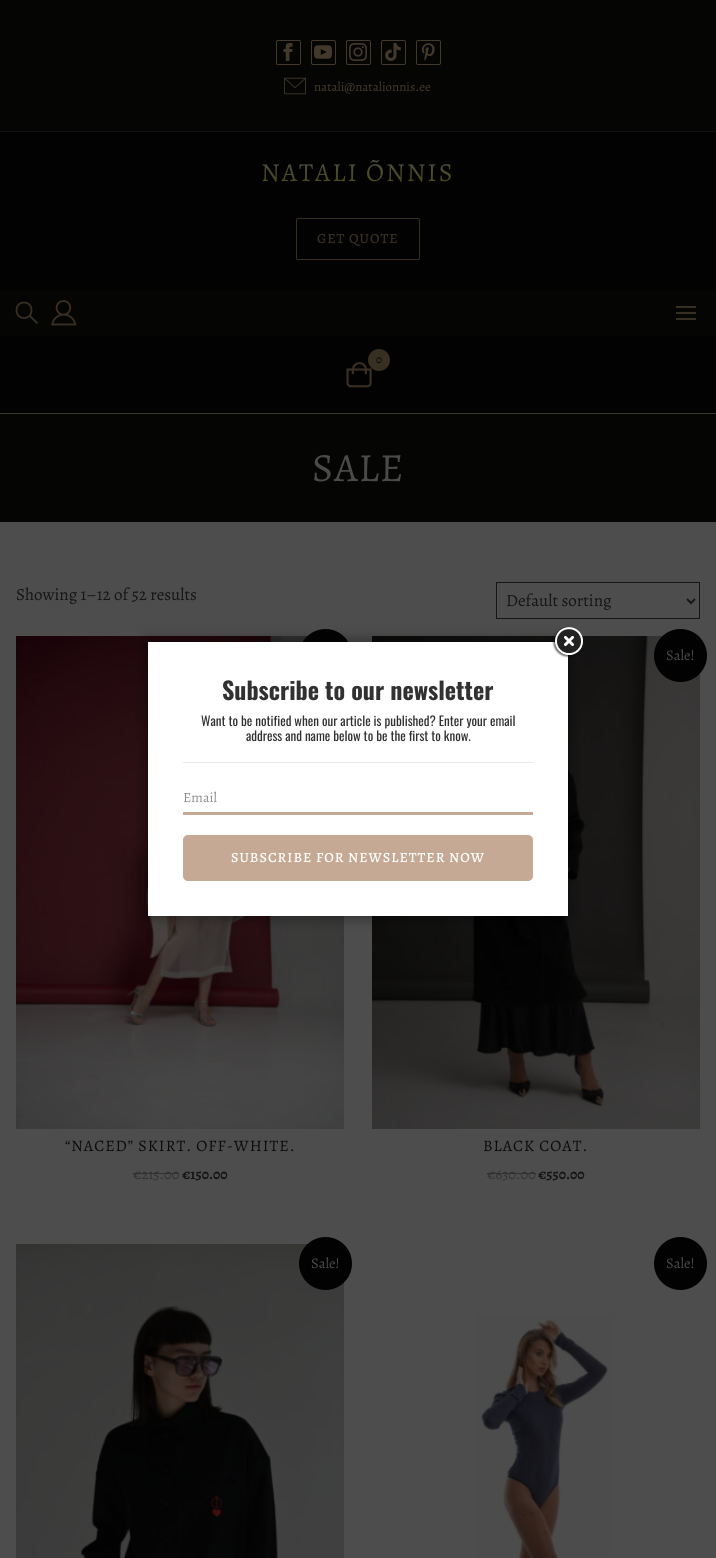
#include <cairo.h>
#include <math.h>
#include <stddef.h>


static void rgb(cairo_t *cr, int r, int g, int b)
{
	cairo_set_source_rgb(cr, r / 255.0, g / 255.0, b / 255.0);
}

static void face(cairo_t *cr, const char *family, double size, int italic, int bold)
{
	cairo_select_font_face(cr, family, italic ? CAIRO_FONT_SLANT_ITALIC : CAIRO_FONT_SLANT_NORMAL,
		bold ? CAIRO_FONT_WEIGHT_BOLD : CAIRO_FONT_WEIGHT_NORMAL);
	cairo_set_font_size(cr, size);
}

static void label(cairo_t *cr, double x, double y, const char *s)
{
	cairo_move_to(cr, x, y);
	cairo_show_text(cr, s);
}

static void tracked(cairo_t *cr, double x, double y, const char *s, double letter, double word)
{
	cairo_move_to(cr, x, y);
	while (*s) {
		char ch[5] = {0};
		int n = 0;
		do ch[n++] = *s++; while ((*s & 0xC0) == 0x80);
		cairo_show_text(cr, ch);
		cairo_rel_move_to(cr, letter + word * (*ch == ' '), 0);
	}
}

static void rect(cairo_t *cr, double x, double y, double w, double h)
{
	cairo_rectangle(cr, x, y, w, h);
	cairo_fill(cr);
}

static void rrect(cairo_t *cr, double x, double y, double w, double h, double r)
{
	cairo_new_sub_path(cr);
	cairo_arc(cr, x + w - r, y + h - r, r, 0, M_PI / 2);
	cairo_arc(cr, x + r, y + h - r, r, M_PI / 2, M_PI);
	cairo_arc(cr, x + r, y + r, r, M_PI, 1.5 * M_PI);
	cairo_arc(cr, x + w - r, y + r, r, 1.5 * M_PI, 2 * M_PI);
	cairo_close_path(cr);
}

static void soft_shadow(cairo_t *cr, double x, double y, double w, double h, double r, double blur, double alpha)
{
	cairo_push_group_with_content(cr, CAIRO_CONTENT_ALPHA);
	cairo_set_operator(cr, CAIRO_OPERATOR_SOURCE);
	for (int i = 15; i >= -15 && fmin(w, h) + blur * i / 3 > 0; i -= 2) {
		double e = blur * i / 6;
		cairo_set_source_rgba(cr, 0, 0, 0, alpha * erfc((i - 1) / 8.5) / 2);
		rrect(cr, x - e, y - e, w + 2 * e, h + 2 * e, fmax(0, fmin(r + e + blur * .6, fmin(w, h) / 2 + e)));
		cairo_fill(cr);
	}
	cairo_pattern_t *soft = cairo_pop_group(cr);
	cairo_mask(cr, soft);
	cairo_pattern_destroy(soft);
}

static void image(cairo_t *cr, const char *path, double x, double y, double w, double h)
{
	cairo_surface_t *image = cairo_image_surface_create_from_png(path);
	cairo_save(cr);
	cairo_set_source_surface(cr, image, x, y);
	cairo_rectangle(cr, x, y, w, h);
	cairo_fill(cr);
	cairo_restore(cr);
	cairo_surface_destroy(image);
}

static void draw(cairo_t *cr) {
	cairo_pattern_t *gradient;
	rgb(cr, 77, 77, 77);
	cairo_paint(cr);
	rgb(cr, 5, 5, 4);
	rect(cr, 0, 0, 716, 131);
	rgb(cr, 17, 17, 17);
	rect(cr, 0, 131, 716, 1);
	rrect(cr, 276.5, 40.5, 24, 24, 1.5);
	rgb(cr, 66, 57, 43);
	cairo_set_line_width(cr, 1);
	cairo_stroke(cr);
	image(cr, "image0.png", 283, 43, 10, 18);
	rrect(cr, 311.5, 40.5, 24, 24, 1.5);
	cairo_stroke(cr);
	image(cr, "image1.png", 314, 45, 18, 14);
	rrect(cr, 346.5, 40.5, 24, 24, 1.5);
	cairo_stroke(cr);
	image(cr, "image2.png", 349, 43, 18, 18);
	rrect(cr, 381.5, 40.5, 24, 24, 1.5);
	cairo_stroke(cr);
	image(cr, "image3.png", 385, 43, 16, 18);
	rrect(cr, 416.5, 40.5, 24, 24, 1.5);
	cairo_stroke(cr);
	image(cr, "image4.png", 421, 43, 14, 18);
	image(cr, "image5.png", 284, 77, 22, 18);
	face(cr, "Alegreya", 13, 0, 0);
	rgb(cr, 66, 57, 42);
	label(cr, 314, 91, "natali@natalionnis.ee");
	rgb(cr, 2, 2, 2);
	rect(cr, 0, 132, 716, 281);
	rgb(cr, 56, 59, 47);
	rect(cr, 0, 413, 716, 1);
	face(cr, "Alegreya", 26, 0, 0);
	gradient = cairo_pattern_create_linear(358, 155, 358, 190);
	cairo_pattern_add_color_stop_rgba(gradient, 0, 0.302, 0.302, 0.302, 1);
	cairo_pattern_add_color_stop_rgba(gradient, 1, 0.278, 0.278, 0.039, 1);
	cairo_set_source(cr, gradient);
	cairo_pattern_destroy(gradient);
	tracked(cr, 261, 181, "NATALI ÕNNIS", 2, 0);
	rrect(cr, 296.5, 218.5, 123, 41, 1.5);
	rgb(cr, 56, 47, 35);
	cairo_stroke(cr);
	face(cr, "Alegreya Medium", 14, 0, 0);
	tracked(cr, 317, 243, "GET QUOTE", 1, 0);
	rgb(cr, 5, 5, 4);
	rect(cr, 0, 290, 716, 46);
	rgb(cr, 56, 47, 35);
	rect(cr, 676, 306, 20, 2);
	rect(cr, 676, 312, 20, 2);
	rect(cr, 676, 318, 20, 2);
	cairo_new_path(cr);
	cairo_move_to(cr, 24, 318);
	cairo_curve_to(cr, 34, 318, 34, 302.5, 24, 302.5);
	cairo_curve_to(cr, 14, 302.5, 14, 318, 24, 318);
	cairo_close_path(cr);
	cairo_move_to(cr, 37.5, 323.5);
	cairo_line_to(cr, 29.5, 315.5);
	cairo_set_line_width(cr, 1.8);
	cairo_stroke(cr);
	image(cr, "image6.png", 51, 300, 26, 26);
	image(cr, "image7.png", 346, 362, 26, 26);
	cairo_arc(cr, 379, 360, 11, 0, 2 * M_PI);
	cairo_fill(cr);
	face(cr, "Alegreya", 11, 0, 0);
	rgb(cr, 3, 3, 3);
	label(cr, 376, 363, "0");
	rgb(cr, 5, 5, 4);
	rect(cr, 0, 414, 716, 108);
	face(cr, "Alegreya", 40, 0, 0);
	rgb(cr, 74, 74, 74);
	tracked(cr, 312, 481, "SALE", 1, 0);
	face(cr, "Alegreya", 17, 0, 0);
	rgb(cr, 21, 21, 21);
	label(cr, 16, 600, "Showing 1–12 of 52 results");
	cairo_rectangle(cr, 496.5, 582.5, 203, 36);
	cairo_set_line_width(cr, 1);
	cairo_stroke(cr);
	cairo_new_path(cr);
	cairo_move_to(cr, 687, 599);
	cairo_line_to(cr, 691, 603);
	cairo_line_to(cr, 695, 599);
	cairo_set_line_width(cr, 2);
	cairo_stroke(cr);
	label(cr, 506, 606, "Default sorting");
	image(cr, "image8.png", 16, 636, 328, 493);
	rgb(cr, 3, 2, 3);
	cairo_arc(cr, 325.5, 655.5, 26.5, 0, 2 * M_PI);
	cairo_fill(cr);
	face(cr, "Alegreya", 16, 0, 0);
	rgb(cr, 11, 11, 11);
	tracked(cr, 65, 1151, "“NACED” SKIRT. OFF-WHITE.", 1, 0);
	face(cr, "Alegreya", 14.5, 0, 0);
	rgb(cr, 49, 49, 49);
	label(cr, 133, 1179, "€215.00");
	rect(cr, 133, 1173, 46, 1);
	face(cr, "Alegreya", 14.5, 0, 1);
	rgb(cr, 21, 21, 21);
	label(cr, 182, 1179, "€150.00");
	image(cr, "image9.png", 372, 636, 328, 493);
	rgb(cr, 3, 2, 3);
	cairo_arc(cr, 680.5, 655.5, 26.5, 0, 2 * M_PI);
	cairo_fill(cr);
	face(cr, "Alegreya", 14.5, 0, 0);
	rgb(cr, 74, 74, 74);
	label(cr, 666, 660, "Sale!");
	face(cr, "Alegreya", 16, 0, 0);
	rgb(cr, 11, 11, 11);
	tracked(cr, 483, 1151, "BLACK COAT.", 1, 0);
	face(cr, "Alegreya", 14.5, 0, 0);
	rgb(cr, 49, 49, 49);
	label(cr, 487, 1179, "€630.00");
	rect(cr, 487, 1173, 49, 1);
	face(cr, "Alegreya", 14.5, 0, 1);
	rgb(cr, 21, 21, 21);
	label(cr, 538, 1179, "€550.00");
	image(cr, "image10.png", 16, 1244, 328, 314);
	rgb(cr, 3, 2, 3);
	cairo_arc(cr, 325.5, 1263.5, 26.5, 0, 2 * M_PI);
	cairo_fill(cr);
	face(cr, "Alegreya", 14.5, 0, 0);
	rgb(cr, 74, 74, 74);
	label(cr, 311, 1268, "Sale!");
	rgb(cr, 3, 2, 3);
	cairo_new_path(cr);
	cairo_arc(cr, 680.5, 1263.5, 26.5, 0, 2 * M_PI);
	cairo_fill(cr);
	rgb(cr, 74, 74, 74);
	label(cr, 666, 1268, "Sale!");
	image(cr, "image11.png", 477, 1314, 134, 244);
	rgb(cr, 0, 0, 0);
	soft_shadow(cr, 148, 642, 420, 274, 0, 7.5, 0.5);
	rgb(cr, 255, 255, 255);
	rect(cr, 148, 642, 420, 274);
	image(cr, "image12.png", 552, 627, 31, 31);
	face(cr, "Oswald", 24, 0, 1);
	rgb(cr, 49, 49, 49);
	label(cr, 222, 700, "Subscribe to our newsletter");
	face(cr, "Oswald", 13, 0, 0);
	label(cr, 201, 726, "Want to be notified when our article is published? Enter your email");
	label(cr, 246, 741, "address and name below to be the first to know.");
	rgb(cr, 232, 232, 232);
	rect(cr, 183, 762, 350, 1);
	rgb(cr, 197, 169, 148);
	rect(cr, 183, 812, 350, 3);
	face(cr, "Alegreya", 14, 0, 0);
	rgb(cr, 143, 143, 143);
	label(cr, 183, 802, "Email");
	rgb(cr, 197, 169, 148);
	rrect(cr, 183, 835, 350, 46, 5);
	cairo_fill(cr);
	face(cr, "Alegreya Medium", 14, 0, 0);
	rgb(cr, 255, 255, 255);
	tracked(cr, 231, 862, "SUBSCRIBE FOR NEWSLETTER NOW", 1, 0);
}

int main(void) {
	cairo_surface_t *surface = cairo_image_surface_create(CAIRO_FORMAT_RGB24, 716, 1558);
	cairo_t *cr = cairo_create(surface);
	cairo_font_options_t *options = cairo_font_options_create();
	cairo_font_options_set_hint_metrics(options, CAIRO_HINT_METRICS_OFF);
	cairo_font_options_set_hint_style(options, CAIRO_HINT_STYLE_NONE);
	cairo_set_font_options(cr, options);
	cairo_set_miter_limit(cr, 4);
	draw(cr);
	cairo_surface_write_to_png(surface, "render.png");
	cairo_font_options_destroy(options);
	cairo_destroy(cr);
	cairo_surface_destroy(surface);
	return 0;
}
